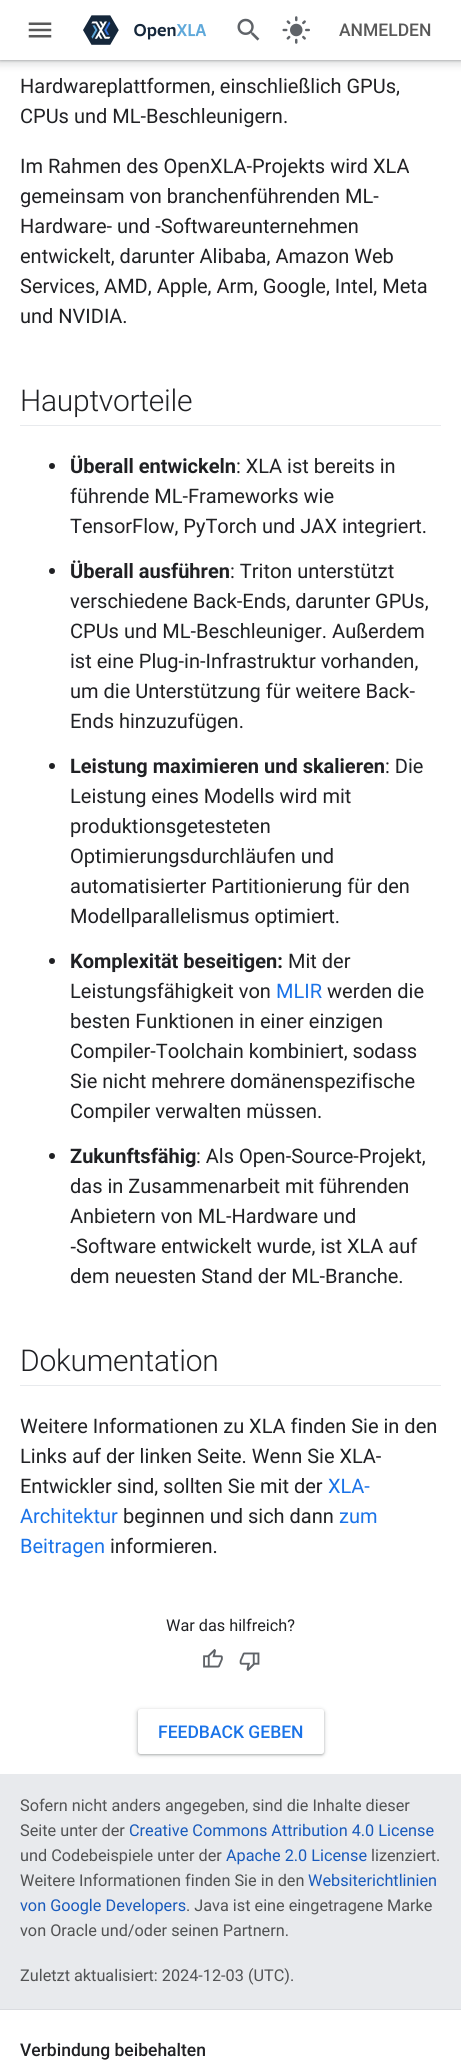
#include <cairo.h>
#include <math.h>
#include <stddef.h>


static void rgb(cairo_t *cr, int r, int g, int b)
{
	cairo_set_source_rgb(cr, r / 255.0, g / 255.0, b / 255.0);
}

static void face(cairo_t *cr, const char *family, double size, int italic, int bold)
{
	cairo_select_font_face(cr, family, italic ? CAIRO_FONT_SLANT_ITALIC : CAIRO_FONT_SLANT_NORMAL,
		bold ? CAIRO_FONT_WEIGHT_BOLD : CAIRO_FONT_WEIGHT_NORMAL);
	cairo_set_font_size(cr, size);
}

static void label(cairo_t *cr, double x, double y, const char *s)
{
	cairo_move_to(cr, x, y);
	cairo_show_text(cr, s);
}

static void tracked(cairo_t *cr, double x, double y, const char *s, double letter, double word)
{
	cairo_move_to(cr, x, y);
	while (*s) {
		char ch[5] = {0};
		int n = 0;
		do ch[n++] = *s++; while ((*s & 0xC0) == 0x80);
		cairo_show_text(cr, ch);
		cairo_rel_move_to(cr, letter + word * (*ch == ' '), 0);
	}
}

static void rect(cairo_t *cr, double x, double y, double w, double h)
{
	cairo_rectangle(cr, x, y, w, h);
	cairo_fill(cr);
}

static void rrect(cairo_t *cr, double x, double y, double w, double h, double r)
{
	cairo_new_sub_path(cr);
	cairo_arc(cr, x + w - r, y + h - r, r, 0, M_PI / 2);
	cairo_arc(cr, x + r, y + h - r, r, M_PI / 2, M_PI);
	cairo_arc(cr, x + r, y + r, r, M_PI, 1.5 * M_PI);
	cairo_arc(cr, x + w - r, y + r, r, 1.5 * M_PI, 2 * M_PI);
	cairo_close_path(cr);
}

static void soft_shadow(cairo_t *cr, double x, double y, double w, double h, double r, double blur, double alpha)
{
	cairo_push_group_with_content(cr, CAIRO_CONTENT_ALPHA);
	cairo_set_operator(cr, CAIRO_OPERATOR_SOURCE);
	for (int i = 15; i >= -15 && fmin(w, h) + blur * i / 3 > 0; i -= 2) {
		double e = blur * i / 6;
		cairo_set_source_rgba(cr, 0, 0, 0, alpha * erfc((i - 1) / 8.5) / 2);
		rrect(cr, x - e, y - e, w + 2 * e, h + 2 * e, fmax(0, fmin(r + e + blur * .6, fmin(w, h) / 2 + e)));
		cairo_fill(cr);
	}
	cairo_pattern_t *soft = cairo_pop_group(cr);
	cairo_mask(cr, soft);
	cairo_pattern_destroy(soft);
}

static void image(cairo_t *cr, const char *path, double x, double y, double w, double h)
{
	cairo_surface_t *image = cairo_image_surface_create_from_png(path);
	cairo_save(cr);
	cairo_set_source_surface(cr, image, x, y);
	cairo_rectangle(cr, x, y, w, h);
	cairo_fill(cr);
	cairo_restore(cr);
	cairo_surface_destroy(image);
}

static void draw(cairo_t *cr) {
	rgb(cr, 232, 234, 237);
	cairo_paint(cr);
	rgb(cr, 255, 255, 255);
	rect(cr, 0, 60, 461, 1714);
	rgb(cr, 60, 64, 67);
	soft_shadow(cr, -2, -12, 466, 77, 0, 4, 0.15);
	soft_shadow(cr, 0, -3, 461, 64, 0, 1, 0.3);
	rgb(cr, 255, 255, 255);
	rect(cr, 0, 0, 461, 60);
	image(cr, "image0.png", 28, 22, 24, 16);
	image(cr, "image1.png", 83, 15, 124, 30);
	image(cr, "image2.png", 237, 18, 23, 23);
	image(cr, "image3.png", 282, 16, 28, 28);
	face(cr, "Roboto Medium", 17.5, 0, 0);
	rgb(cr, 89, 89, 89);
	label(cr, 339, 36, "ANMELDEN");
	face(cr, "Roboto", 20, 0, 0);
	rgb(cr, 32, 33, 36);
	label(cr, 20, 93, "Hardwareplattformen, einschließlich GPUs,");
	label(cr, 20, 123, "CPUs und ML-Beschleunigern.");
	label(cr, 20, 173, "Im Rahmen des OpenXLA-Projekts wird XLA");
	label(cr, 20, 203, "gemeinsam von branchenführenden ML-");
	label(cr, 20, 233, "Hardware- und -Softwareunternehmen");
	label(cr, 20, 263, "entwickelt, darunter Alibaba, Amazon Web");
	label(cr, 20, 293, "Services, AMD, Apple, Arm, Google, Intel, Meta");
	label(cr, 20, 323, "und NVIDIA.");
	rgb(cr, 232, 234, 237);
	rect(cr, 20, 425, 421, 1);
	face(cr, "Roboto Light", 30, 0, 0);
	rgb(cr, 32, 33, 36);
	tracked(cr, 20, 411, "Hauptvorteile", -0.25, 0);
	cairo_new_path(cr);
	cairo_arc(cr, 52, 466, 3, 0, 2 * M_PI);
	cairo_fill(cr);
	face(cr, "Roboto", 20, 0, 1);
	label(cr, 70, 473, "Überall entwickeln");
	face(cr, "Roboto", 20, 0, 0);
	label(cr, 236, 473, ": XLA ist bereits in");
	label(cr, 70, 503, "führende ML-Frameworks wie");
	label(cr, 70, 533, "TensorFlow, PyTorch und JAX integriert.");
	cairo_new_path(cr);
	cairo_arc(cr, 52, 571, 3, 0, 2 * M_PI);
	cairo_fill(cr);
	face(cr, "Roboto", 20, 0, 1);
	label(cr, 70, 578, "Überall ausführen");
	face(cr, "Roboto", 20, 0, 0);
	label(cr, 230, 578, ": Triton unterstützt");
	label(cr, 70, 608, "verschiedene Back-Ends, darunter GPUs,");
	label(cr, 70, 638, "CPUs und ML-Beschleuniger. Außerdem");
	label(cr, 70, 668, "ist eine Plug-in-Infrastruktur vorhanden,");
	label(cr, 70, 698, "um die Unterstützung für weitere Back-");
	label(cr, 70, 728, "Ends hinzuzufügen.");
	cairo_new_path(cr);
	cairo_arc(cr, 52, 766, 3, 0, 2 * M_PI);
	cairo_fill(cr);
	face(cr, "Roboto", 20, 0, 1);
	label(cr, 70, 773, "Leistung maximieren und skalieren");
	face(cr, "Roboto", 20, 0, 0);
	label(cr, 385, 773, ": Die");
	label(cr, 70, 803, "Leistung eines Modells wird mit");
	label(cr, 70, 833, "produktionsgetesteten");
	label(cr, 70, 863, "Optimierungsdurchläufen und");
	label(cr, 70, 893, "automatisierter Partitionierung für den");
	label(cr, 70, 923, "Modellparallelismus optimiert.");
	cairo_new_path(cr);
	cairo_arc(cr, 52, 961, 3, 0, 2 * M_PI);
	cairo_fill(cr);
	face(cr, "Roboto", 20, 0, 1);
	label(cr, 70, 968, "Komplexität beseitigen:");
	face(cr, "Roboto", 20, 0, 0);
	label(cr, 288, 968, "Mit der");
	label(cr, 70, 998, "Leistungsfähigkeit von");
	rgb(cr, 26, 115, 232);
	label(cr, 276, 998, "MLIR");
	rgb(cr, 32, 33, 36);
	label(cr, 327, 998, "werden die");
	label(cr, 70, 1028, "besten Funktionen in einer einzigen");
	label(cr, 70, 1058, "Compiler-Toolchain kombiniert, sodass");
	label(cr, 70, 1088, "Sie nicht mehrere domänenspezifische");
	label(cr, 70, 1118, "Compiler verwalten müssen.");
	cairo_new_path(cr);
	cairo_arc(cr, 52, 1156, 3, 0, 2 * M_PI);
	cairo_fill(cr);
	face(cr, "Roboto", 20, 0, 1);
	label(cr, 70, 1163, "Zukunftsfähig");
	face(cr, "Roboto", 20, 0, 0);
	label(cr, 196, 1163, ": Als Open-Source-Projekt,");
	label(cr, 70, 1193, "das in Zusammenarbeit mit führenden");
	label(cr, 70, 1223, "Anbietern von ML-Hardware und");
	face(cr, "Noto Sans", 20, 0, 0);
	label(cr, 70, 1253, "‑");
	face(cr, "Roboto", 20, 0, 0);
	label(cr, 76, 1253, "Software entwickelt wurde, ist XLA auf");
	label(cr, 70, 1283, "dem neuesten Stand der ML-Branche.");
	rgb(cr, 232, 234, 237);
	rect(cr, 20, 1385, 421, 1);
	face(cr, "Roboto Light", 30, 0, 0);
	rgb(cr, 32, 33, 36);
	tracked(cr, 20, 1371, "Dokumentation", -0.25, 0);
	face(cr, "Roboto", 20, 0, 0);
	label(cr, 20, 1433, "Weitere Informationen zu XLA finden Sie in den");
	label(cr, 20, 1463, "Links auf der linken Seite. Wenn Sie XLA-");
	label(cr, 20, 1493, "Entwickler sind, sollten Sie mit der");
	rgb(cr, 26, 115, 232);
	label(cr, 328, 1493, "XLA-");
	label(cr, 20, 1523, "Architektur");
	rgb(cr, 32, 33, 36);
	label(cr, 123, 1523, "beginnen und sich dann");
	rgb(cr, 26, 115, 232);
	label(cr, 339, 1523, "zum");
	label(cr, 20, 1553, "Beitragen");
	rgb(cr, 32, 33, 36);
	label(cr, 110, 1553, "informieren.");
	face(cr, "Roboto", 16.25, 0, 0);
	label(cr, 166, 1631, "War das hilfreich?");
	image(cr, "image4.png", 203, 1649, 20, 19);
	image(cr, "image5.png", 239, 1652, 21, 19);
	rgb(cr, 60, 64, 67);
	soft_shadow(cr, 136, 1709, 189, 47, 4, 2, 0.15);
	soft_shadow(cr, 138, 1710, 186, 45, 2.5, 1, 0.3);
	rgb(cr, 255, 255, 255);
	rrect(cr, 138, 1709, 186, 45, 2.5);
	cairo_fill(cr);
	face(cr, "Roboto Medium", 17.5, 0, 0);
	rgb(cr, 26, 115, 232);
	label(cr, 158, 1738, "FEEDBACK GEBEN");
	face(cr, "Roboto", 16.25, 0, 0);
	rgb(cr, 81, 82, 83);
	label(cr, 20, 1811, "Sofern nicht anders angegeben, sind die Inhalte dieser");
	label(cr, 20, 1836, "Seite unter der");
	rgb(cr, 24, 90, 188);
	label(cr, 129, 1836, "Creative Commons Attribution 4.0 License");
	rgb(cr, 81, 82, 83);
	label(cr, 20, 1861, "und Codebeispiele unter der");
	rgb(cr, 24, 90, 188);
	label(cr, 226, 1861, "Apache 2.0 License");
	rgb(cr, 81, 82, 83);
	label(cr, 371, 1861, "lizenziert.");
	label(cr, 20, 1886, "Weitere Informationen finden Sie in den");
	rgb(cr, 24, 90, 188);
	label(cr, 308, 1886, "Websiterichtlinien");
	label(cr, 20, 1911, "von Google Developers");
	rgb(cr, 81, 82, 83);
	label(cr, 186, 1911, ". Java ist eine eingetragene Marke");
	label(cr, 20, 1936, "von Oracle und/oder seinen Partnern.");
	label(cr, 20, 1981, "Zuletzt aktualisiert: 2024-12-03 (UTC).");
	rgb(cr, 218, 220, 224);
	rect(cr, 0, 2009, 461, 1);
	rgb(cr, 255, 255, 255);
	rect(cr, 0, 2010, 461, 51);
	face(cr, "Roboto Medium", 17.5, 0, 0);
	rgb(cr, 32, 33, 36);
	label(cr, 20, 2056, "Verbindung beibehalten");
}

int main(void) {
	cairo_surface_t *surface = cairo_image_surface_create(CAIRO_FORMAT_RGB24, 461, 2061);
	cairo_t *cr = cairo_create(surface);
	cairo_font_options_t *options = cairo_font_options_create();
	cairo_font_options_set_hint_metrics(options, CAIRO_HINT_METRICS_OFF);
	cairo_font_options_set_hint_style(options, CAIRO_HINT_STYLE_NONE);
	cairo_set_font_options(cr, options);
	cairo_set_miter_limit(cr, 4);
	draw(cr);
	cairo_surface_write_to_png(surface, "render.png");
	cairo_font_options_destroy(options);
	cairo_destroy(cr);
	cairo_surface_destroy(surface);
	return 0;
}
